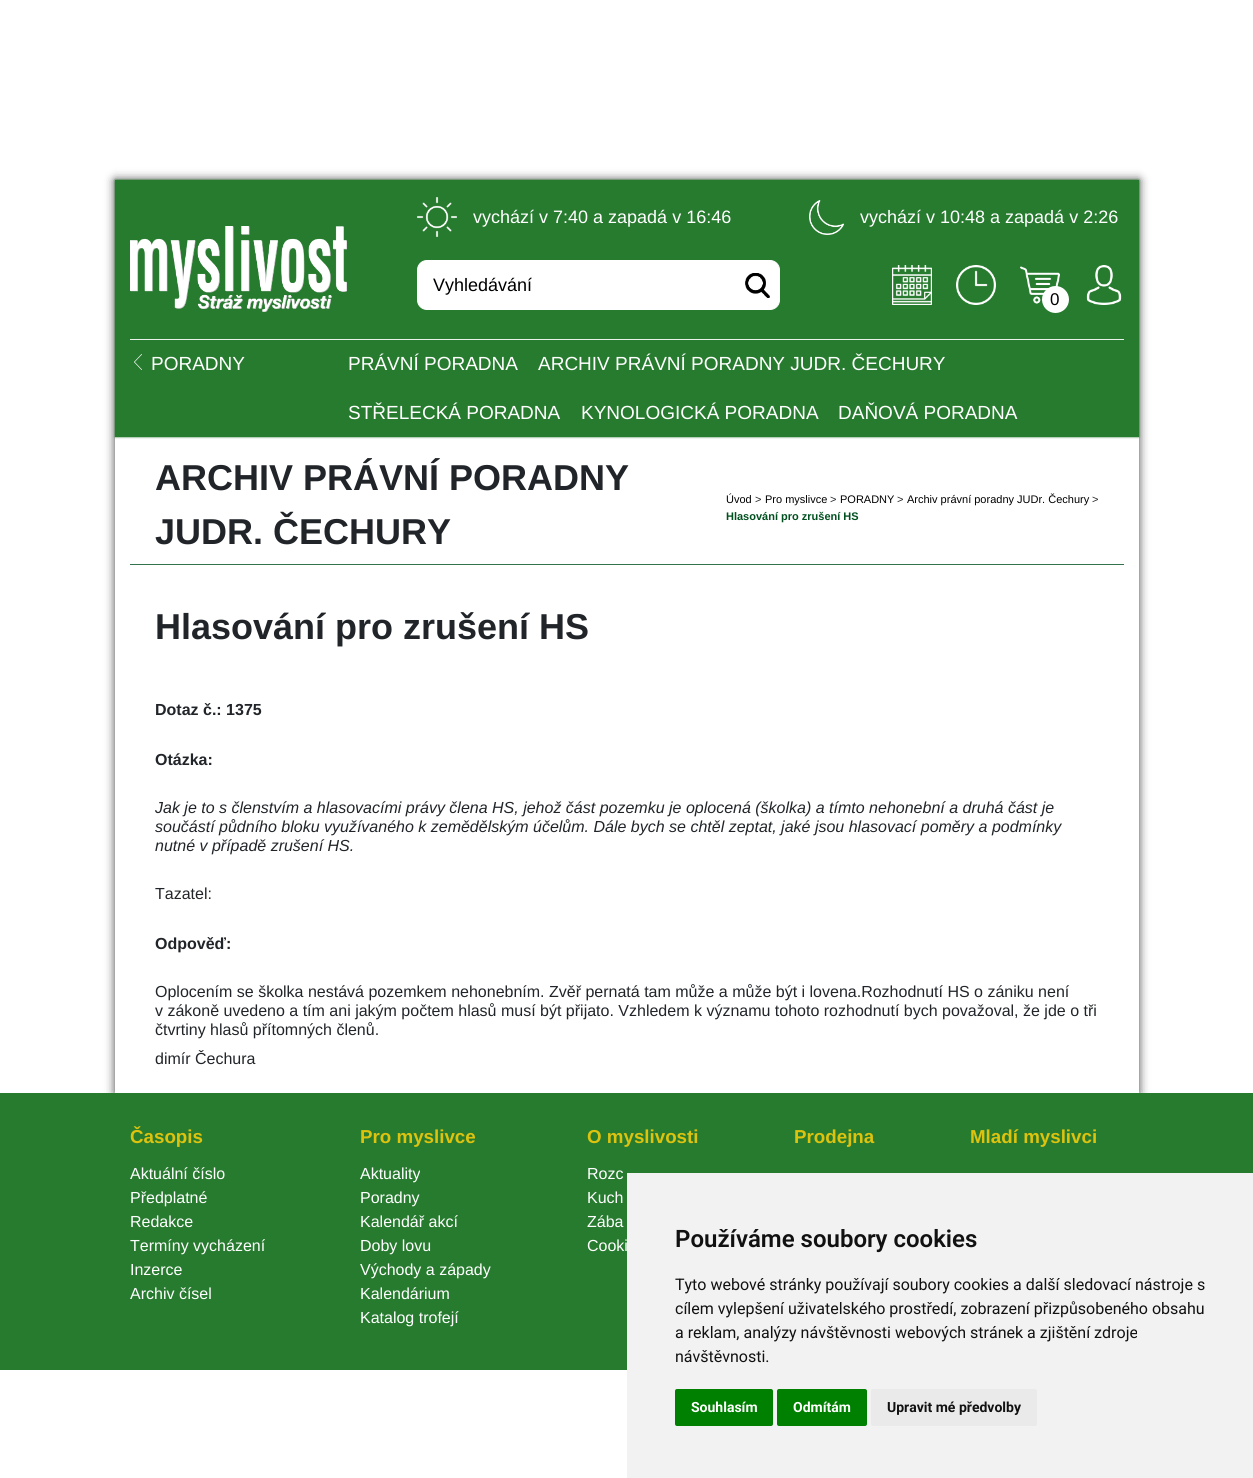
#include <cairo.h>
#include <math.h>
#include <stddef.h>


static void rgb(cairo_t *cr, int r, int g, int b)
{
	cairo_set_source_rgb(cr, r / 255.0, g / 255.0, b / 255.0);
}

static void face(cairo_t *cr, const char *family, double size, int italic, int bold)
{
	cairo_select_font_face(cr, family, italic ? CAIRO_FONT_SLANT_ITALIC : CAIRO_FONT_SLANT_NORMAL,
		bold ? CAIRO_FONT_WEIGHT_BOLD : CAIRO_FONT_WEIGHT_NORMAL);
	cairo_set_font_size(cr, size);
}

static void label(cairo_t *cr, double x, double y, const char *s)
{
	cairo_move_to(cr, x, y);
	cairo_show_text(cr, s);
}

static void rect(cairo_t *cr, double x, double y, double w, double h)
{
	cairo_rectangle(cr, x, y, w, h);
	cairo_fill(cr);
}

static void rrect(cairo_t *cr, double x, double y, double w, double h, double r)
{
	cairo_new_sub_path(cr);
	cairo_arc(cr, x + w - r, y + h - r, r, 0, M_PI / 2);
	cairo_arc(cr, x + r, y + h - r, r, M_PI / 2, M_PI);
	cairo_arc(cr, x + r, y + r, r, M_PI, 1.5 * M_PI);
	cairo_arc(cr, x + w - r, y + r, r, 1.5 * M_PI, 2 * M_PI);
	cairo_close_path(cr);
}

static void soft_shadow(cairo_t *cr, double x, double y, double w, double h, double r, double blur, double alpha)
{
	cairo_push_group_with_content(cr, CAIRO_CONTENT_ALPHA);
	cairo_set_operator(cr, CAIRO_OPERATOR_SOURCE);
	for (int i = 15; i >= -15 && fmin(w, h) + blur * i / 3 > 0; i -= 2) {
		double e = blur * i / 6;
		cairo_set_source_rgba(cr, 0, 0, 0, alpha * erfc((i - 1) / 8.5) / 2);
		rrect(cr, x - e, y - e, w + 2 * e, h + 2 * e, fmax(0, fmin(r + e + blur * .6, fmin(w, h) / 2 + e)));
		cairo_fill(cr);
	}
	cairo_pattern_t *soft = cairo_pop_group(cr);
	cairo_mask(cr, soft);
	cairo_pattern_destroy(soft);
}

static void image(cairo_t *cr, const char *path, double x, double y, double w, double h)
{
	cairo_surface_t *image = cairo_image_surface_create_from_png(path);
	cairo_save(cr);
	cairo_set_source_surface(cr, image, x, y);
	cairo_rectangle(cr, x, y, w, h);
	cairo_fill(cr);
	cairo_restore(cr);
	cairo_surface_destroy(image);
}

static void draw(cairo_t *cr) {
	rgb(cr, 255, 255, 255);
	cairo_paint(cr);
	cairo_save(cr);
	cairo_set_fill_rule(cr, CAIRO_FILL_RULE_EVEN_ODD);
	cairo_new_path(cr);
	cairo_move_to(cr, 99, 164);
	cairo_line_to(cr, 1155, 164);
	cairo_line_to(cr, 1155, 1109);
	cairo_line_to(cr, 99, 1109);
	cairo_close_path(cr);
	cairo_move_to(cr, 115, 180);
	cairo_line_to(cr, 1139, 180);
	cairo_line_to(cr, 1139, 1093);
	cairo_line_to(cr, 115, 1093);
	cairo_close_path(cr);
	cairo_clip(cr);
	rgb(cr, 68, 68, 68);
	soft_shadow(cr, 115, 180, 1024, 913, 0, 5, 1);
	cairo_restore(cr);
	rgb(cr, 39, 123, 47);
	soft_shadow(cr, 115, 180, 1024, 257, 0, 1, 1);
	rgb(cr, 39, 123, 47);
	rect(cr, 115, 180, 1024, 257);
	image(cr, "image0.png", 417, 197, 40, 40);
	face(cr, "Liberation Sans", 18, 0, 0);
	rgb(cr, 255, 255, 255);
	label(cr, 473, 223, "vychází v 7:40 a zapadá v 16:46");
	image(cr, "image1.png", 809, 200, 35, 35);
	label(cr, 860, 223, "vychází v 10:48 a zapadá v 2:26");
	image(cr, "image2.png", 130, 226, 217, 86);
	rrect(cr, 417.5, 260.5, 362, 49, 9.5);
	cairo_fill_preserve(cr);
	cairo_set_line_width(cr, 1);
	cairo_stroke(cr);
	rgb(cr, 0, 0, 0);
	label(cr, 433, 291, "Vyhledávání");
	image(cr, "image3.png", 745, 273, 25, 25);
	image(cr, "image4.png", 745, 273, 25, 25);
	image(cr, "image5.png", 892, 265, 40, 40);
	image(cr, "image6.png", 956, 265, 40, 40);
	image(cr, "image7.png", 1020, 266, 40, 38);
	rgb(cr, 255, 255, 255);
	cairo_arc(cr, 1055.5, 299.5, 13.5, 0, 2 * M_PI);
	cairo_fill(cr);
	face(cr, "Liberation Sans", 17, 0, 0);
	rgb(cr, 0, 0, 0);
	label(cr, 1050, 305, "0");
	image(cr, "image8.png", 1086, 265, 36, 40);
	rgb(cr, 233, 242, 234);
	rect(cr, 130, 339, 994, 1);
	image(cr, "image9.png", 134, 354, 8, 16);
	face(cr, "Liberation Sans", 19, 0, 0);
	rgb(cr, 255, 255, 255);
	label(cr, 151, 370, "PORADNY");
	label(cr, 348, 370, "PRÁVNÍ PORADNA");
	label(cr, 538, 370, "ARCHIV PRÁVNÍ PORADNY JUDR. ČECHURY");
	label(cr, 348, 419, "STŘELECKÁ PORADNA");
	label(cr, 581, 419, "KYNOLOGICKÁ PORADNA");
	label(cr, 838, 419, "DAŇOVÁ PORADNA");
	rgb(cr, 51, 115, 76);
	rect(cr, 130, 564, 994, 1);
	face(cr, "Liberation Sans", 36, 0, 1);
	rgb(cr, 33, 37, 41);
	label(cr, 155, 490, "ARCHIV PRÁVNÍ PORADNY");
	label(cr, 155, 544, "JUDR. ČECHURY");
	face(cr, "Liberation Sans", 11, 0, 0);
	rgb(cr, 0, 0, 0);
	label(cr, 726, 503, "Úvod");
	rgb(cr, 33, 37, 41);
	label(cr, 755, 503, ">");
	rgb(cr, 0, 0, 0);
	label(cr, 765, 503, "Pro myslivce");
	rgb(cr, 33, 37, 41);
	label(cr, 830, 503, ">");
	rgb(cr, 0, 0, 0);
	label(cr, 840, 503, "PORADNY");
	rgb(cr, 33, 37, 41);
	label(cr, 897, 503, ">");
	rgb(cr, 0, 0, 0);
	label(cr, 907, 503, "Archiv právní poradny JUDr. Čechury");
	rgb(cr, 33, 37, 41);
	label(cr, 1092, 503, ">");
	face(cr, "Liberation Sans", 11, 0, 1);
	rgb(cr, 0, 80, 31);
	label(cr, 726, 520, "Hlasování pro zrušení HS");
	face(cr, "Liberation Sans", 36, 0, 1);
	rgb(cr, 33, 37, 41);
	label(cr, 155, 639, "Hlasování pro zrušení HS");
	face(cr, "Liberation Sans", 16, 0, 1);
	label(cr, 155, 715, "Dotaz č.: 1375");
	label(cr, 155, 765, "Otázka:");
	face(cr, "Liberation Sans", 16, 1, 0);
	label(cr, 155, 813, "Jak je to s členstvím a hlasovacími právy člena HS, jehož část pozemku je oplocená (školka) a tímto nehonební a druhá část je");
	label(cr, 155, 832, "součástí půdního bloku využívaného k zemědělským účelům. Dále bych se chtěl zeptat, jaké jsou hlasovací poměry a podmínky");
	label(cr, 155, 851, "nutné v případě zrušení HS.");
	face(cr, "Liberation Sans", 16, 0, 0);
	label(cr, 155, 899, "Tazatel:");
	face(cr, "Liberation Sans", 16, 0, 1);
	label(cr, 155, 949, "Odpověď:");
	face(cr, "Liberation Sans", 16, 0, 0);
	label(cr, 155, 997, "Oplocením se školka nestává pozemkem nehonebním. Zvěř pernatá tam může a může být i lovena.Rozhodnutí HS o zániku není");
	label(cr, 155, 1016, "v zákoně uvedeno a tím ani jakým počtem hlasů musí být přijato. Vzhledem k významu tohoto rozhodnutí bych považoval, že jde o tři");
	label(cr, 155, 1035, "čtvrtiny hlasů přítomných členů.");
	label(cr, 155, 1064, "dimír Čechura");
	rgb(cr, 39, 123, 47);
	rect(cr, 0, 1093, 1253, 277);
	face(cr, "Liberation Sans", 18.75, 0, 1);
	rgb(cr, 221, 194, 14);
	label(cr, 130, 1143, "Časopis");
	face(cr, "Liberation Sans", 16, 0, 0);
	rgb(cr, 255, 255, 255);
	label(cr, 130, 1179, "Aktuální číslo");
	label(cr, 130, 1203, "Předplatné");
	label(cr, 130, 1227, "Redakce");
	label(cr, 130, 1251, "Termíny vycházení");
	label(cr, 130, 1275, "Inzerce");
	label(cr, 130, 1299, "Archiv čísel");
	face(cr, "Liberation Sans", 18.75, 0, 1);
	rgb(cr, 221, 194, 14);
	label(cr, 360, 1143, "Pro myslivce");
	face(cr, "Liberation Sans", 16, 0, 0);
	rgb(cr, 255, 255, 255);
	label(cr, 360, 1179, "Aktuality");
	label(cr, 360, 1203, "Poradny");
	label(cr, 360, 1227, "Kalendář akcí");
	label(cr, 360, 1251, "Doby lovu");
	label(cr, 360, 1275, "Východy a západy");
	label(cr, 360, 1299, "Kalendárium");
	label(cr, 360, 1323, "Katalog trofejí");
	face(cr, "Liberation Sans", 18.75, 0, 1);
	rgb(cr, 221, 194, 14);
	label(cr, 587, 1143, "O myslivosti");
	face(cr, "Liberation Sans", 16, 0, 0);
	rgb(cr, 255, 255, 255);
	label(cr, 587, 1179, "Rozc");
	label(cr, 587, 1203, "Kuch");
	label(cr, 587, 1227, "Zába");
	label(cr, 587, 1251, "Cooki");
	face(cr, "Liberation Sans", 18.75, 0, 1);
	rgb(cr, 221, 194, 14);
	label(cr, 794, 1143, "Prodejna");
	label(cr, 970, 1143, "Mladí myslivci");
	rgb(cr, 242, 242, 242);
	rect(cr, 627, 1173, 626, 305);
	face(cr, "Roboto SemiBold", 24, 0, 0);
	rgb(cr, 17, 17, 17);
	label(cr, 675, 1247, "Používáme soubory cookies");
	face(cr, "Roboto", 16, 0, 0);
	label(cr, 675, 1290, "Tyto webové stránky používají soubory cookies a další sledovací nástroje s");
	label(cr, 675, 1314, "cílem vylepšení uživatelského prostředí, zobrazení přizpůsobeného obsahu");
	label(cr, 675, 1338, "a reklam, analýzy návštěvnosti webových stránek a zjištění zdroje");
	label(cr, 675, 1362, "návštěvnosti.");
	rgb(cr, 0, 128, 0);
	rrect(cr, 675, 1389, 98, 37, 2);
	cairo_fill(cr);
	face(cr, "Roboto", 14, 0, 1);
	rgb(cr, 255, 255, 255);
	label(cr, 691, 1412, "Souhlasím");
	rgb(cr, 0, 128, 0);
	rrect(cr, 777, 1389, 90, 37, 2);
	cairo_fill(cr);
	rgb(cr, 255, 255, 255);
	label(cr, 793, 1412, "Odmítám");
	rgb(cr, 234, 234, 234);
	rrect(cr, 871, 1389, 166, 37, 2);
	cairo_fill(cr);
	rgb(cr, 17, 17, 17);
	label(cr, 887, 1412, "Upravit mé předvolby");
}

int main(void) {
	cairo_surface_t *surface = cairo_image_surface_create(CAIRO_FORMAT_RGB24, 1253, 1478);
	cairo_t *cr = cairo_create(surface);
	cairo_font_options_t *options = cairo_font_options_create();
	cairo_font_options_set_hint_metrics(options, CAIRO_HINT_METRICS_OFF);
	cairo_font_options_set_hint_style(options, CAIRO_HINT_STYLE_NONE);
	cairo_set_font_options(cr, options);
	cairo_set_miter_limit(cr, 4);
	draw(cr);
	cairo_surface_write_to_png(surface, "render.png");
	cairo_font_options_destroy(options);
	cairo_destroy(cr);
	cairo_surface_destroy(surface);
	return 0;
}
